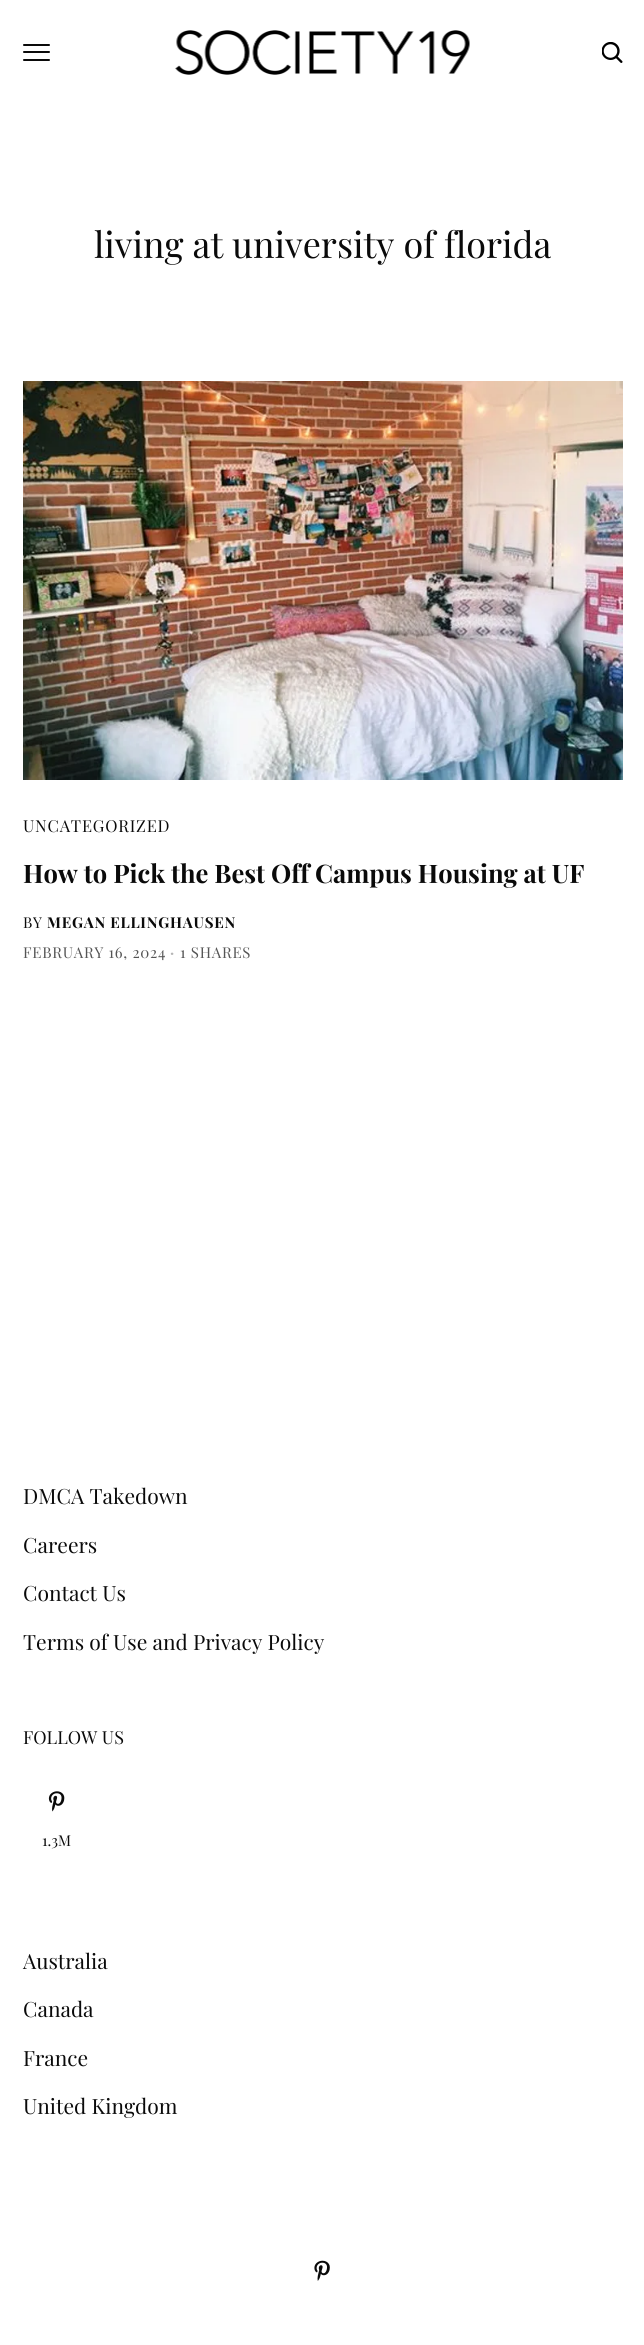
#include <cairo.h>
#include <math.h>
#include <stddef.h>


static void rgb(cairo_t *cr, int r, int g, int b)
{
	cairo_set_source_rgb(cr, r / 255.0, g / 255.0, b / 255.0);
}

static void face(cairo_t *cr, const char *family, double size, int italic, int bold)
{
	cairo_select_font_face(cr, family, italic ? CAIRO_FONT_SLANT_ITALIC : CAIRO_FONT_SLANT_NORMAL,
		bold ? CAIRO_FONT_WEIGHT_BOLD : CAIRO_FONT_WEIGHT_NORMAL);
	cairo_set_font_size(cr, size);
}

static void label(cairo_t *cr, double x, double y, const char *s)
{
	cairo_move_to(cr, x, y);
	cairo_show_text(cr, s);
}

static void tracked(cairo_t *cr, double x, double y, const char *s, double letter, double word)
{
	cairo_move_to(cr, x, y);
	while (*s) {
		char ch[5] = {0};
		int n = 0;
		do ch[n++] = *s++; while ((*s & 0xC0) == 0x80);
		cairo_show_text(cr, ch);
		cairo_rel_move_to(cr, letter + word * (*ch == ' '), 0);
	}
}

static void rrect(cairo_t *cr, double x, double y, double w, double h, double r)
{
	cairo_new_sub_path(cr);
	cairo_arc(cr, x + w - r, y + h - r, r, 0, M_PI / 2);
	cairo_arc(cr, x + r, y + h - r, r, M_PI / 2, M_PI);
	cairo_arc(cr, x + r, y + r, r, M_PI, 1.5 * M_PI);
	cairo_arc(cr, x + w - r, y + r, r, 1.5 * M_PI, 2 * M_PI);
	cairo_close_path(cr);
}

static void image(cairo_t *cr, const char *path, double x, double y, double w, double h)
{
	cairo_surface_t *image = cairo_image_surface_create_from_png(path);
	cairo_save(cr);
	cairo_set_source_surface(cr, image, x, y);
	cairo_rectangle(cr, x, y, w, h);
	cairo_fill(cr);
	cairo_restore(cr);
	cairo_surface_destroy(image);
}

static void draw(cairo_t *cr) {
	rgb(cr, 255, 255, 255);
	cairo_paint(cr);
	rgb(cr, 10, 10, 10);
	rrect(cr, 23, 44, 27, 2, 1);
	cairo_fill(cr);
	rrect(cr, 23, 51, 27, 2, 1);
	cairo_fill(cr);
	rrect(cr, 23, 59, 27, 2, 1);
	cairo_fill(cr);
	image(cr, "image0.png", 175, 30, 295, 45);
	image(cr, "image1.png", 602, 42, 21, 21);
	face(cr, "Playfair Display", 36, 0, 0);
	label(cr, 94, 258, "living at university of florida");
	image(cr, "image2.png", 23, 381, 600, 399);
	face(cr, "Playfair Display", 16.5, 0, 0);
	tracked(cr, 23, 832, "UNCATEGORIZED", 0.8, 0);
	face(cr, "Playfair Display", 25.5, 0, 1);
	label(cr, 23, 883, "How to Pick the Best Off Campus Housing at UF");
	face(cr, "Playfair Display", 15, 0, 0);
	tracked(cr, 23, 928, "BY", 0.75, 0);
	face(cr, "Playfair Display", 15, 0, 1);
	tracked(cr, 47, 928, "MEGAN ELLINGHAUSEN", 0.75, 0);
	face(cr, "Playfair Display", 15, 0, 0);
	rgb(cr, 84, 84, 84);
	tracked(cr, 23, 958, "FEBRUARY 16, 2024", 0.75, 0);
	face(cr, "Playfair Display", 15, 0, 1);
	rgb(cr, 181, 181, 181);
	tracked(cr, 170, 958, "·", 0.75, 0);
	face(cr, "Playfair Display", 15, 0, 0);
	rgb(cr, 84, 84, 84);
	tracked(cr, 180, 958, "1 SHARES", 0.75, 0);
	face(cr, "Playfair Display", 21, 0, 0);
	rgb(cr, 10, 10, 10);
	label(cr, 23, 1504, "DMCA Takedown");
	label(cr, 23, 1553, "Careers");
	label(cr, 23, 1601, "Contact Us");
	label(cr, 23, 1650, "Terms of Use and Privacy Policy");
	face(cr, "Playfair Display", 18, 0, 0);
	label(cr, 23, 1744, "FOLLOW US");
	image(cr, "image3.png", 48, 1791, 17, 21);
	face(cr, "Playfair Display", 15, 0, 0);
	label(cr, 42, 1846, "1.3M");
	face(cr, "Playfair Display", 21, 0, 0);
	label(cr, 23, 1969, "Australia");
	label(cr, 23, 2017, "Canada");
	label(cr, 23, 2066, "France");
	label(cr, 23, 2114, "United Kingdom");
	image(cr, "image4.png", 314, 2260, 16, 21);
}

int main(void) {
	cairo_surface_t *surface = cairo_image_surface_create(CAIRO_FORMAT_RGB24, 644, 2345);
	cairo_t *cr = cairo_create(surface);
	cairo_font_options_t *options = cairo_font_options_create();
	cairo_font_options_set_hint_metrics(options, CAIRO_HINT_METRICS_OFF);
	cairo_font_options_set_hint_style(options, CAIRO_HINT_STYLE_NONE);
	cairo_set_font_options(cr, options);
	cairo_set_miter_limit(cr, 4);
	draw(cr);
	cairo_surface_write_to_png(surface, "render.png");
	cairo_font_options_destroy(options);
	cairo_destroy(cr);
	cairo_surface_destroy(surface);
	return 0;
}
